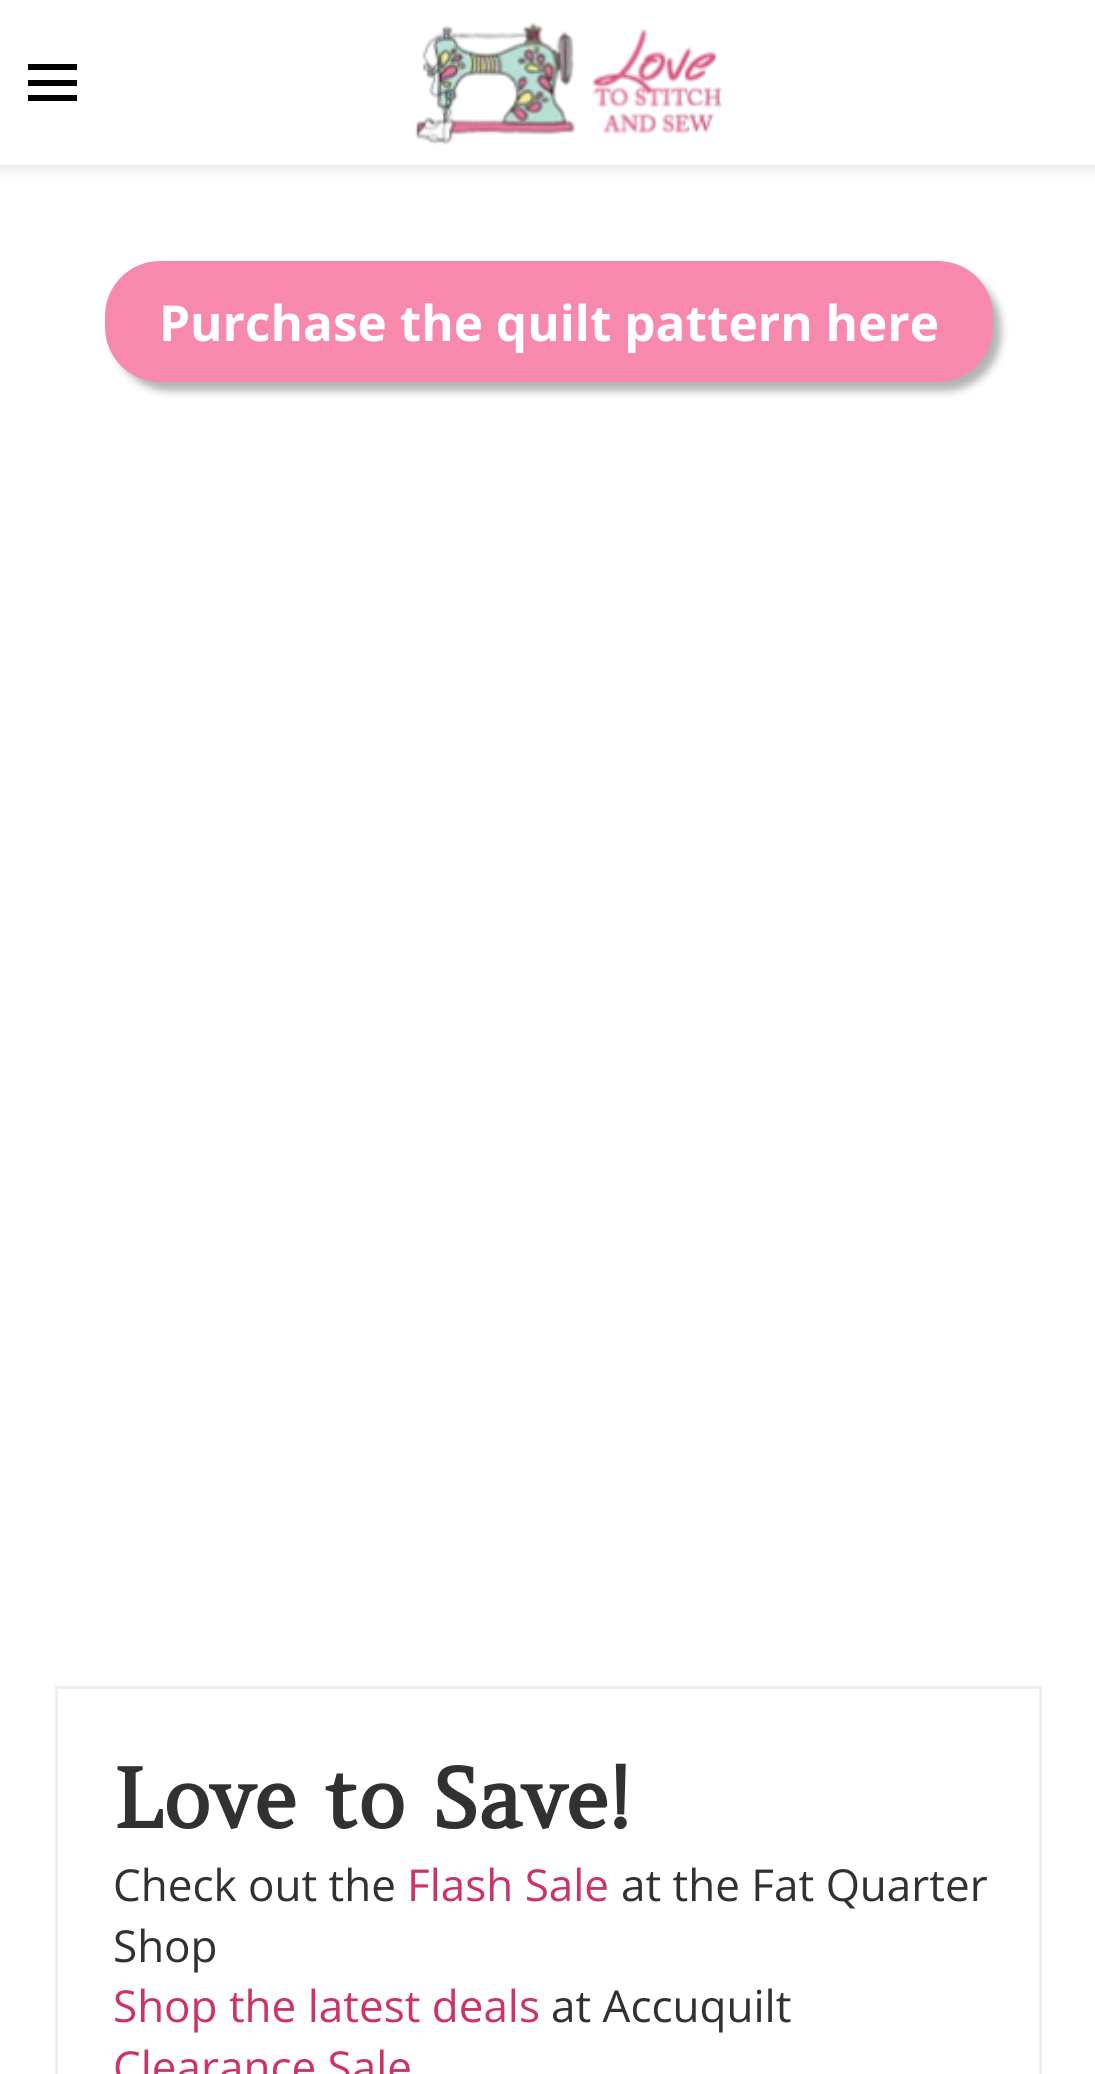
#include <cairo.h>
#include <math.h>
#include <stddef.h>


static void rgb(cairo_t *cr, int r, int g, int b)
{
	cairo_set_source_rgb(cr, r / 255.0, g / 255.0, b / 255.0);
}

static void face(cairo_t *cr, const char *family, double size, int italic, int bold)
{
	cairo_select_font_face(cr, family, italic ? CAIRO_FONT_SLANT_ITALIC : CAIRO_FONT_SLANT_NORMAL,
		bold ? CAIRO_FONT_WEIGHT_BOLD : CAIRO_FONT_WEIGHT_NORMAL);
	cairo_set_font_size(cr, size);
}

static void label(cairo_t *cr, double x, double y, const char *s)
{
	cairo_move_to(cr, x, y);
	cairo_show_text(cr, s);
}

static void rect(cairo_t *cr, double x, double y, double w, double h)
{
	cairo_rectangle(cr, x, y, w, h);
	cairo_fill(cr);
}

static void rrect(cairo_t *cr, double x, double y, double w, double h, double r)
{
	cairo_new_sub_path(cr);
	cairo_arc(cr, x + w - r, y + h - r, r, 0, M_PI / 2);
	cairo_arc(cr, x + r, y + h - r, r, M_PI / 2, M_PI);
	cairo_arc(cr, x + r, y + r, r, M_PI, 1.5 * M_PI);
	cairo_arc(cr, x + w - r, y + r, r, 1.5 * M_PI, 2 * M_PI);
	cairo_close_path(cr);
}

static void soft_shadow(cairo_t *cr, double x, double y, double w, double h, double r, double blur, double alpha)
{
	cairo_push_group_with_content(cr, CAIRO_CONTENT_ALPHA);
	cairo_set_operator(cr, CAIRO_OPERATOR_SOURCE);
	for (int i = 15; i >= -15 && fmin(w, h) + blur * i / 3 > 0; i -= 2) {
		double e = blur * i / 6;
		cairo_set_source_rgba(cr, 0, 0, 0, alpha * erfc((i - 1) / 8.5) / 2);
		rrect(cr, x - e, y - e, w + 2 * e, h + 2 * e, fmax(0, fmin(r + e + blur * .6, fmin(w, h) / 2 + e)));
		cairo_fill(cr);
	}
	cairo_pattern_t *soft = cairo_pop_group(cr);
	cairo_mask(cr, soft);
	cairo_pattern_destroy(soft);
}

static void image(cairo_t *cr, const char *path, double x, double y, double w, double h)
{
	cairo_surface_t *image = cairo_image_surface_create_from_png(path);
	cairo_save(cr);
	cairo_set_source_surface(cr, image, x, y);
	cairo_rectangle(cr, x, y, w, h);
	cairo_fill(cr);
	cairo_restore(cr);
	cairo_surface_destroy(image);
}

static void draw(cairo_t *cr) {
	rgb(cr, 255, 255, 255);
	cairo_paint(cr);
	rgb(cr, 190, 190, 190);
	soft_shadow(cr, 0, 3, 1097, 165, 0, 7, 0.46);
	rgb(cr, 255, 255, 255);
	rect(cr, 0, 0, 1095, 165);
	rgb(cr, 0, 0, 0);
	rect(cr, 28, 64, 49, 6);
	rect(cr, 28, 80, 49, 6);
	rect(cr, 28, 95, 49, 6);
	image(cr, "image0.png", 415, 22, 307, 123);
	rgb(cr, 179, 179, 179);
	soft_shadow(cr, 113, 270, 888, 121, 55, 4, 1);
	rgb(cr, 247, 137, 173);
	rrect(cr, 105, 261, 888, 121, 55);
	cairo_fill(cr);
	face(cr, "Open Sans", 49.5, 0, 1);
	rgb(cr, 255, 255, 255);
	label(cr, 159, 341, "Purchase the quilt pattern here");
	cairo_rectangle(cr, 56.5, 1687.5, 984, 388);
	rgb(cr, 238, 238, 238);
	cairo_set_line_width(cr, 3);
	cairo_stroke(cr);
	face(cr, "Amethysta", 82.5, 0, 1);
	rgb(cr, 49, 49, 49);
	label(cr, 113, 1828, "Love to Save!");
	face(cr, "Open Sans", 44, 0, 0);
	label(cr, 113, 1901, "Check out the");
	rgb(cr, 204, 51, 102);
	label(cr, 407, 1901, "Flash Sale");
	rgb(cr, 49, 49, 49);
	label(cr, 621, 1901, "at the Fat Quarter");
	label(cr, 113, 1962, "Shop");
	rgb(cr, 204, 51, 102);
	label(cr, 113, 2022, "Shop the latest deals");
	rgb(cr, 49, 49, 49);
	label(cr, 551, 2022, "at Accuquilt");
	rgb(cr, 204, 51, 102);
	label(cr, 113, 2083, "Clearance Sale");
}

int main(void) {
	cairo_surface_t *surface = cairo_image_surface_create(CAIRO_FORMAT_RGB24, 1095, 2074);
	cairo_t *cr = cairo_create(surface);
	cairo_font_options_t *options = cairo_font_options_create();
	cairo_font_options_set_hint_metrics(options, CAIRO_HINT_METRICS_OFF);
	cairo_font_options_set_hint_style(options, CAIRO_HINT_STYLE_NONE);
	cairo_set_font_options(cr, options);
	cairo_set_miter_limit(cr, 4);
	draw(cr);
	cairo_surface_write_to_png(surface, "render.png");
	cairo_font_options_destroy(options);
	cairo_destroy(cr);
	cairo_surface_destroy(surface);
	return 0;
}
